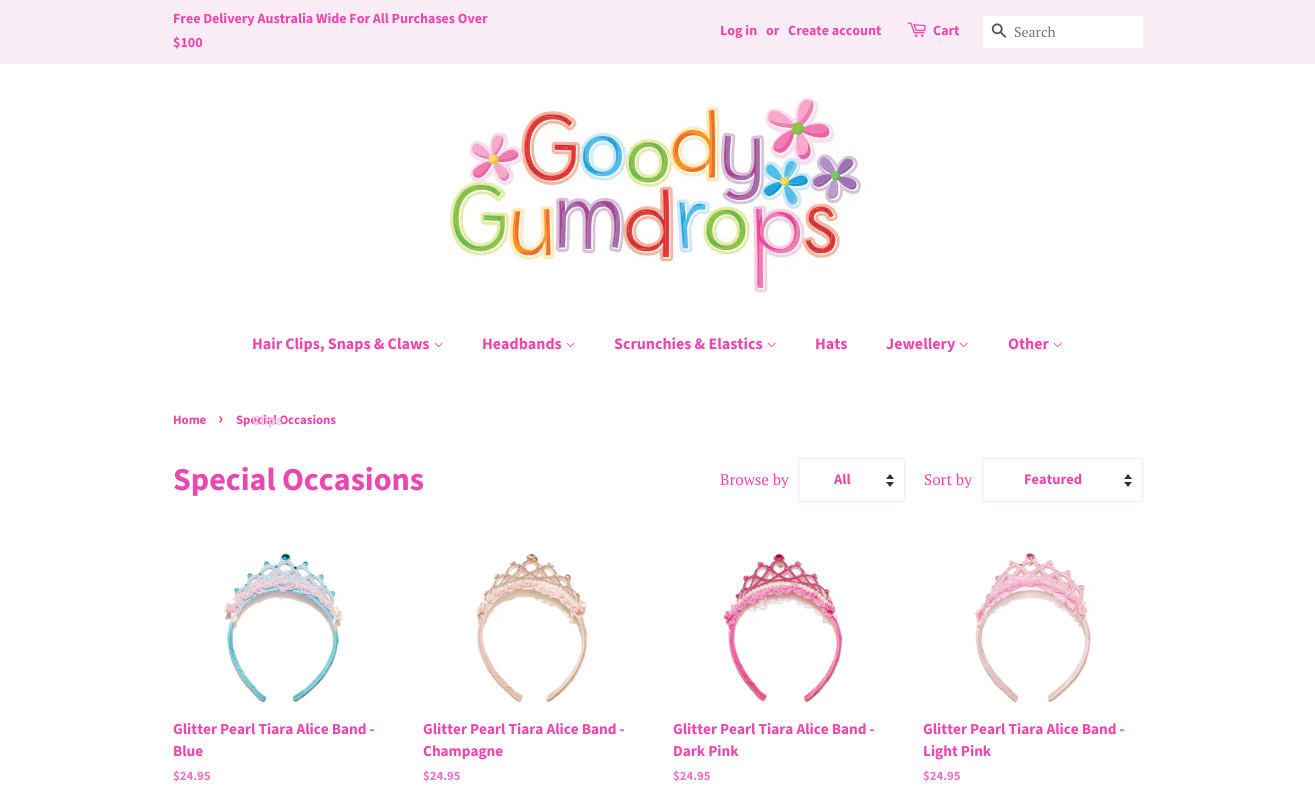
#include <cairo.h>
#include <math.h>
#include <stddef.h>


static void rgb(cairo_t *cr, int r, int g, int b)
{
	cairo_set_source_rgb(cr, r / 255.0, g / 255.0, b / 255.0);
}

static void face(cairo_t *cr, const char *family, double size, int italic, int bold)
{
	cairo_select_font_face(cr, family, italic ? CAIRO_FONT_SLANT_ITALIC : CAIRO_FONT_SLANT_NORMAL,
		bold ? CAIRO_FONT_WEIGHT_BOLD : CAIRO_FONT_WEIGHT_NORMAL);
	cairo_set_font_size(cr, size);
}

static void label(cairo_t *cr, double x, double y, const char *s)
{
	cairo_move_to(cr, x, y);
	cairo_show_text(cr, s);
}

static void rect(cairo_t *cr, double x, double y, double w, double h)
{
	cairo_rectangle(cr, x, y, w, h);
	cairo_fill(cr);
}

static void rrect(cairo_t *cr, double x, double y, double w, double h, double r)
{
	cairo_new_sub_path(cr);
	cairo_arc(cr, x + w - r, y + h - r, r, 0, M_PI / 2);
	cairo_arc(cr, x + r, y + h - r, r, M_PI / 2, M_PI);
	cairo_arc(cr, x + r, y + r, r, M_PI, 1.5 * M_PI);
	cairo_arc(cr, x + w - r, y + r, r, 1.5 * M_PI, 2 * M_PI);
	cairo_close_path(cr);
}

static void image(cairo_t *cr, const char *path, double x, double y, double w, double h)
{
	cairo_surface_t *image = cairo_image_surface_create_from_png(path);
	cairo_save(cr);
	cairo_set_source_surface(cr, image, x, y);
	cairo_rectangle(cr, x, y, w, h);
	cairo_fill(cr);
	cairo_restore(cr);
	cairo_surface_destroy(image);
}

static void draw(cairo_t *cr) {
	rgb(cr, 255, 255, 255);
	cairo_paint(cr);
	rgb(cr, 249, 236, 245);
	rect(cr, 0, 0, 1315, 64);
	face(cr, "Source Sans Pro", 14, 0, 1);
	rgb(cr, 237, 70, 175);
	label(cr, 173, 23, "Free Delivery Australia Wide For All Purchases Over");
	label(cr, 173, 47, "$100");
	label(cr, 720, 35, "Log in");
	label(cr, 766, 35, "or");
	label(cr, 788, 35, "Create account");
	image(cr, "image0.png", 907, 22, 19, 15);
	label(cr, 933, 35, "Cart");
	rgb(cr, 255, 255, 255);
	rrect(cr, 983, 16, 160, 32, 2);
	cairo_fill(cr);
	image(cr, "image1.png", 991, 23, 16, 15);
	face(cr, "PT Serif", 14, 0, 0);
	rgb(cr, 117, 117, 117);
	label(cr, 1014, 37, "Search");
	image(cr, "image2.png", 448, 94, 417, 200);
	face(cr, "Source Sans Pro", 16, 0, 1);
	rgb(cr, 237, 70, 175);
	label(cr, 252, 349, "Hair Clips, Snaps & Claws");
	image(cr, "image3.png", 434, 342, 9, 6);
	face(cr, "Source Sans Pro", 12.75, 0, 1);
	label(cr, 236, 424, "Special Occasions");
	face(cr, "Source Sans Pro", 14, 0, 1);
	rgb(cr, 249, 194, 229);
	label(cr, 252, 425, "Clips");
	face(cr, "Source Sans Pro", 16, 0, 1);
	rgb(cr, 237, 70, 175);
	label(cr, 482, 349, "Headbands");
	image(cr, "image3.png", 566, 342, 9, 6);
	label(cr, 614, 349, "Scrunchies & Elastics");
	image(cr, "image3.png", 767, 342, 9, 6);
	label(cr, 815, 349, "Hats");
	label(cr, 886, 349, "Jewellery");
	image(cr, "image3.png", 959, 342, 9, 6);
	label(cr, 1008, 349, "Other");
	image(cr, "image3.png", 1053, 342, 9, 6);
	face(cr, "Source Sans Pro", 12.75, 0, 1);
	label(cr, 173, 424, "Home");
	face(cr, "Source Sans Pro", 18, 0, 1);
	label(cr, 218, 424, "›");
	face(cr, "Source Sans Pro", 32, 0, 1);
	label(cr, 173, 490, "Special Occasions");
	face(cr, "PT Serif", 15.25, 0, 0);
	label(cr, 720, 485, "Browse by");
	image(cr, "image4.png", 886, 474, 8, 13);
	rrect(cr, 798.5, 458.5, 106, 43, 1.5);
	rgb(cr, 252, 227, 243);
	cairo_set_line_width(cr, 1);
	cairo_stroke(cr);
	face(cr, "Source Sans Pro", 14.5, 0, 1);
	rgb(cr, 237, 70, 175);
	label(cr, 834, 484, "All");
	face(cr, "PT Serif", 15.25, 0, 0);
	label(cr, 924, 485, "Sort by");
	image(cr, "image4.png", 1124, 474, 8, 13);
	rrect(cr, 982.5, 458.5, 160, 43, 1.5);
	rgb(cr, 252, 227, 243);
	cairo_stroke(cr);
	face(cr, "Source Sans Pro", 14.5, 0, 1);
	rgb(cr, 237, 70, 175);
	label(cr, 1024, 484, "Featured");
	image(cr, "image5.png", 221, 552, 123, 152);
	face(cr, "Source Sans Pro", 15.25, 0, 1);
	label(cr, 173, 734, "Glitter Pearl Tiara Alice Band -");
	label(cr, 173, 756, "Blue");
	face(cr, "Source Sans Pro", 12.75, 0, 1);
	rgb(cr, 242, 116, 195);
	label(cr, 173, 780, "$24.95");
	image(cr, "image6.png", 475, 552, 116, 152);
	face(cr, "Source Sans Pro", 15.25, 0, 1);
	rgb(cr, 237, 70, 175);
	label(cr, 423, 734, "Glitter Pearl Tiara Alice Band -");
	label(cr, 423, 756, "Champagne");
	face(cr, "Source Sans Pro", 12.75, 0, 1);
	rgb(cr, 242, 116, 195);
	label(cr, 423, 780, "$24.95");
	image(cr, "image7.png", 721, 552, 123, 152);
	face(cr, "Source Sans Pro", 15.25, 0, 1);
	rgb(cr, 237, 70, 175);
	label(cr, 673, 734, "Glitter Pearl Tiara Alice Band -");
	label(cr, 673, 756, "Dark Pink");
	face(cr, "Source Sans Pro", 12.75, 0, 1);
	rgb(cr, 242, 116, 195);
	label(cr, 673, 780, "$24.95");
	image(cr, "image8.png", 974, 553, 117, 150);
	face(cr, "Source Sans Pro", 15.25, 0, 1);
	rgb(cr, 237, 70, 175);
	label(cr, 923, 734, "Glitter Pearl Tiara Alice Band -");
	label(cr, 923, 756, "Light Pink");
	face(cr, "Source Sans Pro", 12.75, 0, 1);
	rgb(cr, 242, 116, 195);
	label(cr, 923, 780, "$24.95");
}

int main(void) {
	cairo_surface_t *surface = cairo_image_surface_create(CAIRO_FORMAT_RGB24, 1315, 803);
	cairo_t *cr = cairo_create(surface);
	cairo_font_options_t *options = cairo_font_options_create();
	cairo_font_options_set_hint_metrics(options, CAIRO_HINT_METRICS_OFF);
	cairo_font_options_set_hint_style(options, CAIRO_HINT_STYLE_NONE);
	cairo_set_font_options(cr, options);
	cairo_set_miter_limit(cr, 4);
	draw(cr);
	cairo_surface_write_to_png(surface, "render.png");
	cairo_font_options_destroy(options);
	cairo_destroy(cr);
	cairo_surface_destroy(surface);
	return 0;
}
